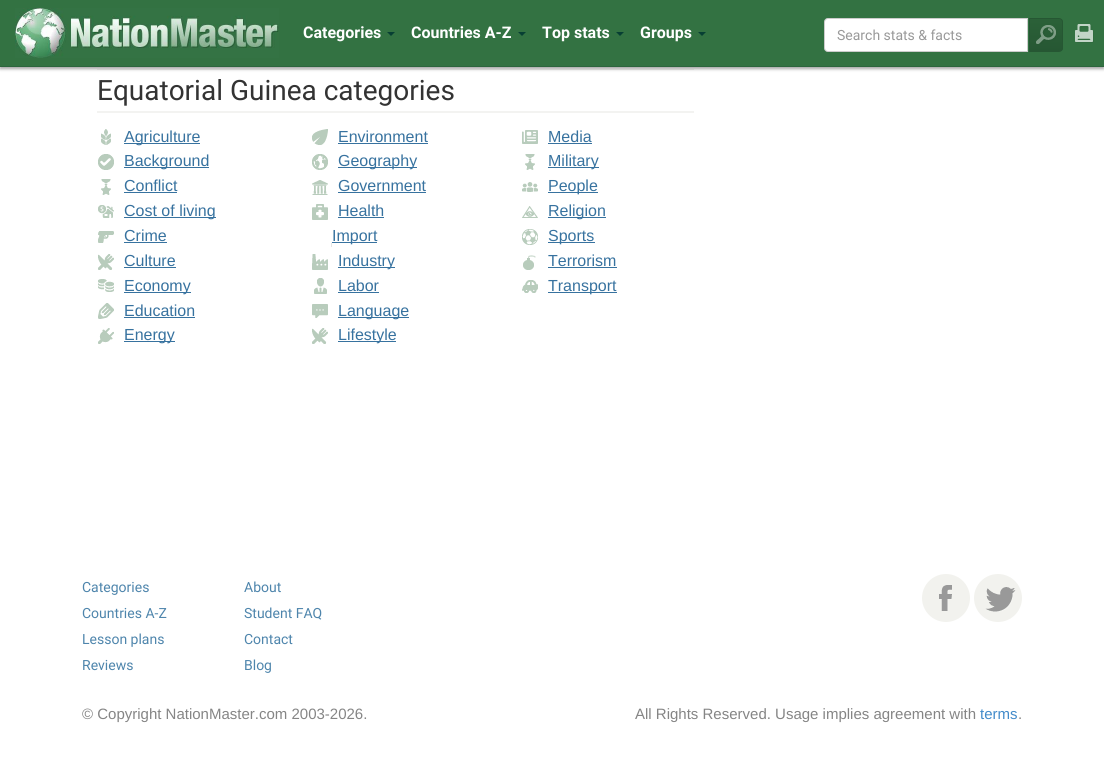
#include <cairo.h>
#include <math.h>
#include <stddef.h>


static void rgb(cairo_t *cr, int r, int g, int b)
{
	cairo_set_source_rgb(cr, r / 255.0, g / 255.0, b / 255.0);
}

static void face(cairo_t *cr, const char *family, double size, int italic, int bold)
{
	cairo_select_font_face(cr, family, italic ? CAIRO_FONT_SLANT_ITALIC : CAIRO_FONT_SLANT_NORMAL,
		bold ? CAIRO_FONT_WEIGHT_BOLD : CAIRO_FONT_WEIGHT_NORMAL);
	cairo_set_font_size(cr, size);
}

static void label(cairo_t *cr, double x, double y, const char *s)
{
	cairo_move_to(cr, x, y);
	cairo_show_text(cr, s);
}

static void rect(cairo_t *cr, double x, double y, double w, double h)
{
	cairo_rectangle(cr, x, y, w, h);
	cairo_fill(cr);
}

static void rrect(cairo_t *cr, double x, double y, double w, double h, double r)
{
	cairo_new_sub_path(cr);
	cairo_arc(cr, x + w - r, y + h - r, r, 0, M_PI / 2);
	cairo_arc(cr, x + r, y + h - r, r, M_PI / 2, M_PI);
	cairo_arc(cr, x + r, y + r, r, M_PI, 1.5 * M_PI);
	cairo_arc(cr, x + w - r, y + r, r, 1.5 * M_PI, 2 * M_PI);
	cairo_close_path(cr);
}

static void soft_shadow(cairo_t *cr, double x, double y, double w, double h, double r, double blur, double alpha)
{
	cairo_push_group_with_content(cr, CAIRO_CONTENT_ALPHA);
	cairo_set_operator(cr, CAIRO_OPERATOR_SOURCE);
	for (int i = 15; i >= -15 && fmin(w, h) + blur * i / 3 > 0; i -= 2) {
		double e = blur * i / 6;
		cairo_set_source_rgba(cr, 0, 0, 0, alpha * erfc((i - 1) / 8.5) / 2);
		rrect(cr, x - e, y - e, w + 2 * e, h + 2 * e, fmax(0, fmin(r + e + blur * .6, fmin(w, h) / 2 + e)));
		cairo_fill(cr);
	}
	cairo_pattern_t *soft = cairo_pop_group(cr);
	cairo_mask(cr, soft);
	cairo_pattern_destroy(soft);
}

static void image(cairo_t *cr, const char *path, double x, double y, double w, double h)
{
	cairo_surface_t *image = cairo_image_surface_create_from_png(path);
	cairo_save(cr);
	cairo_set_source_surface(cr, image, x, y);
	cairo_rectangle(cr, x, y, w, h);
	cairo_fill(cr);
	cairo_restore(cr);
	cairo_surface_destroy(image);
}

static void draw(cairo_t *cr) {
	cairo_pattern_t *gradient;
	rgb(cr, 255, 255, 255);
	cairo_paint(cr);
	rgb(cr, 243, 243, 241);
	rect(cr, 97, 69, 597, 1);
	rgb(cr, 0, 0, 0);
	soft_shadow(cr, 0, 2, 1104, 67, 0, 1.5, 0.35);
	rgb(cr, 51, 114, 66);
	rect(cr, 0, 0, 1104, 66);
	rgb(cr, 44, 101, 61);
	rect(cr, 0, 66, 1104, 1);
	image(cr, "image0.png", 15, 8, 264, 50);
	face(cr, "Roboto", 16, 0, 1);
	rgb(cr, 255, 255, 255);
	label(cr, 303, 38, "Categories");
	rgb(cr, 7, 63, 51);
	cairo_new_path(cr);
	cairo_move_to(cr, 387, 32);
	cairo_line_to(cr, 395, 32);
	cairo_line_to(cr, 391, 36);
	cairo_close_path(cr);
	cairo_fill(cr);
	rgb(cr, 255, 255, 255);
	label(cr, 411, 38, "Countries A-Z");
	rgb(cr, 7, 63, 51);
	cairo_new_path(cr);
	cairo_move_to(cr, 518, 32);
	cairo_line_to(cr, 526, 32);
	cairo_line_to(cr, 522, 36);
	cairo_close_path(cr);
	cairo_fill(cr);
	rgb(cr, 255, 255, 255);
	label(cr, 542, 38, "Top stats");
	rgb(cr, 7, 63, 51);
	cairo_new_path(cr);
	cairo_move_to(cr, 616, 32);
	cairo_line_to(cr, 624, 32);
	cairo_line_to(cr, 620, 36);
	cairo_close_path(cr);
	cairo_fill(cr);
	rgb(cr, 255, 255, 255);
	label(cr, 640, 38, "Groups");
	rgb(cr, 7, 63, 51);
	cairo_new_path(cr);
	cairo_move_to(cr, 698, 32);
	cairo_line_to(cr, 706, 32);
	cairo_line_to(cr, 702, 36);
	cairo_close_path(cr);
	cairo_fill(cr);
	rgb(cr, 255, 255, 255);
	cairo_new_path(cr);
	cairo_move_to(cr, 828, 18.5);
	cairo_line_to(cr, 1027.5, 18.5);
	cairo_line_to(cr, 1027.5, 51.5);
	cairo_line_to(cr, 828, 51.5);
	cairo_curve_to(cr, 826, 51.5, 824.5, 50, 824.5, 48);
	cairo_line_to(cr, 824.5, 22);
	cairo_curve_to(cr, 824.5, 20, 826, 18.5, 828, 18.5);
	cairo_close_path(cr);
	cairo_fill_preserve(cr);
	rgb(cr, 204, 204, 204);
	cairo_set_line_width(cr, 1);
	cairo_stroke(cr);
	face(cr, "Roboto", 14, 0, 0);
	rgb(cr, 153, 153, 153);
	label(cr, 837, 40, "Search stats & facts");
	cairo_save(cr);
	cairo_new_path(cr);
	cairo_move_to(cr, 1029, 18);
	cairo_line_to(cr, 1059, 18);
	cairo_curve_to(cr, 1061, 18, 1063, 20, 1063, 22);
	cairo_line_to(cr, 1063, 48);
	cairo_curve_to(cr, 1063, 50, 1061, 52, 1059, 52);
	cairo_line_to(cr, 1029, 52);
	cairo_close_path(cr);
	cairo_clip(cr);
	gradient = cairo_pattern_create_linear(1046, 19, 1046, 51);
	cairo_pattern_add_color_stop_rgba(gradient, 0, 0.169, 0.38, 0.22, 1);
	cairo_pattern_add_color_stop_rgba(gradient, 1, 0.149, 0.341, 0.2, 1);
	cairo_set_source(cr, gradient);
	cairo_pattern_destroy(gradient);
	rect(cr, 1030, 19, 33, 32);
	cairo_restore(cr);
	cairo_new_path(cr);
	cairo_move_to(cr, 1029.5, 18.5);
	cairo_line_to(cr, 1059, 18.5);
	cairo_curve_to(cr, 1061, 18.5, 1062.5, 20, 1062.5, 22);
	cairo_line_to(cr, 1062.5, 48);
	cairo_curve_to(cr, 1062.5, 50, 1061, 51.5, 1059, 51.5);
	cairo_line_to(cr, 1029.5, 51.5);
	cairo_close_path(cr);
	rgb(cr, 38, 87, 51);
	cairo_stroke(cr);
	image(cr, "image1.png", 1036, 25, 20, 19);
	image(cr, "image2.png", 1075, 24, 19, 19);
	rgb(cr, 243, 243, 241);
	rect(cr, 97, 111, 597, 2);
	face(cr, "Roboto", 28, 0, 0);
	rgb(cr, 51, 51, 51);
	label(cr, 97, 100, "Equatorial Guinea categories");
	image(cr, "image3.png", 101, 129, 10, 16);
	rgb(cr, 55, 114, 159);
	rect(cr, 124, 143, 76, 1);
	face(cr, "Liberation Sans", 16, 0, 0);
	label(cr, 124, 142, "Agriculture");
	image(cr, "image4.png", 312, 129, 16, 16);
	label(cr, 338, 142, "Environment");
	rect(cr, 338, 143, 90, 1);
	image(cr, "image5.png", 522, 130, 16, 14);
	label(cr, 548, 142, "Media");
	rect(cr, 548, 143, 44, 1);
	image(cr, "image6.png", 98, 154, 16, 16);
	rect(cr, 124, 167, 85, 1);
	label(cr, 124, 166, "Background");
	image(cr, "image7.png", 312, 154, 16, 16);
	rect(cr, 338, 167, 79, 1);
	label(cr, 338, 166, "Geography");
	image(cr, "image8.png", 525, 154, 10, 16);
	rect(cr, 548, 167, 51, 1);
	label(cr, 548, 166, "Military");
	image(cr, "image8.png", 101, 179, 10, 16);
	label(cr, 124, 191, "Conflict");
	rect(cr, 124, 192, 53, 1);
	image(cr, "image9.png", 312, 180, 16, 15);
	label(cr, 338, 191, "Government");
	rect(cr, 338, 192, 88, 1);
	image(cr, "image10.png", 522, 182, 16, 10);
	rect(cr, 548, 192, 50, 1);
	label(cr, 548, 191, "People");
	image(cr, "image11.png", 98, 205, 16, 13);
	rect(cr, 124, 217, 92, 1);
	label(cr, 124, 216, "Cost of living");
	image(cr, "image12.png", 312, 204, 16, 16);
	label(cr, 338, 216, "Health");
	rect(cr, 338, 217, 46, 1);
	image(cr, "image13.png", 522, 206, 16, 12);
	rect(cr, 548, 217, 58, 1);
	label(cr, 548, 216, "Religion");
	image(cr, "image14.png", 98, 231, 16, 12);
	label(cr, 124, 241, "Crime");
	rect(cr, 124, 242, 43, 1);
	image(cr, "image15.png", 331, 242, 1, 5);
	rect(cr, 332, 242, 45, 1);
	label(cr, 332, 241, "Import");
	image(cr, "image16.png", 522, 229, 16, 16);
	rect(cr, 548, 242, 47, 1);
	label(cr, 548, 241, "Sports");
	image(cr, "image17.png", 98, 254, 16, 16);
	label(cr, 124, 266, "Culture");
	rect(cr, 124, 267, 52, 1);
	image(cr, "image18.png", 312, 254, 16, 16);
	rect(cr, 338, 267, 57, 1);
	label(cr, 338, 266, "Industry");
	image(cr, "image19.png", 523, 255, 13, 15);
	label(cr, 548, 266, "Terrorism");
	rect(cr, 548, 267, 69, 1);
	image(cr, "image20.png", 98, 279, 16, 13);
	rect(cr, 124, 292, 67, 1);
	label(cr, 124, 291, "Economy");
	image(cr, "image21.png", 314, 278, 13, 16);
	label(cr, 338, 291, "Labor");
	rect(cr, 338, 292, 41, 1);
	image(cr, "image22.png", 522, 280, 16, 13);
	rect(cr, 548, 292, 69, 1);
	label(cr, 548, 291, "Transport");
	image(cr, "image23.png", 98, 303, 16, 16);
	label(cr, 124, 316, "Education");
	rect(cr, 124, 317, 71, 1);
	image(cr, "image24.png", 312, 304, 16, 14);
	rect(cr, 338, 317, 71, 1);
	label(cr, 338, 316, "Language");
	image(cr, "image25.png", 98, 328, 16, 16);
	rect(cr, 124, 341, 51, 1);
	label(cr, 124, 340, "Energy");
	image(cr, "image17.png", 312, 328, 16, 16);
	rect(cr, 338, 341, 58, 1);
	label(cr, 338, 340, "Lifestyle");
	face(cr, "Roboto", 14, 0, 0);
	rgb(cr, 78, 133, 172);
	label(cr, 82, 592, "Categories");
	label(cr, 82, 618, "Countries A-Z");
	label(cr, 82, 644, "Lesson plans");
	label(cr, 82, 670, "Reviews");
	label(cr, 244, 592, "About");
	label(cr, 244, 618, "Student FAQ");
	label(cr, 244, 644, "Contact");
	label(cr, 244, 670, "Blog");
	rgb(cr, 242, 242, 238);
	cairo_new_path(cr);
	cairo_arc(cr, 946, 598, 24, 0, 2 * M_PI);
	cairo_fill(cr);
	image(cr, "image26.png", 939, 585, 13, 26);
	cairo_arc(cr, 998, 598, 24, 0, 2 * M_PI);
	cairo_fill(cr);
	image(cr, "image27.png", 985, 587, 31, 25);
	face(cr, "Liberation Sans", 15, 0, 0);
	rgb(cr, 133, 133, 133);
	label(cr, 82, 719, "© Copyright NationMaster.com 2003-2026.");
	label(cr, 635, 719, "All Rights Reserved. Usage implies agreement with");
	rgb(cr, 66, 139, 202);
	label(cr, 980, 719, "terms");
	rgb(cr, 133, 133, 133);
	label(cr, 1018, 719, ".");
}

int main(void) {
	cairo_surface_t *surface = cairo_image_surface_create(CAIRO_FORMAT_RGB24, 1104, 760);
	cairo_t *cr = cairo_create(surface);
	cairo_font_options_t *options = cairo_font_options_create();
	cairo_font_options_set_hint_metrics(options, CAIRO_HINT_METRICS_OFF);
	cairo_font_options_set_hint_style(options, CAIRO_HINT_STYLE_NONE);
	cairo_set_font_options(cr, options);
	cairo_set_miter_limit(cr, 4);
	draw(cr);
	cairo_surface_write_to_png(surface, "render.png");
	cairo_font_options_destroy(options);
	cairo_destroy(cr);
	cairo_surface_destroy(surface);
	return 0;
}
